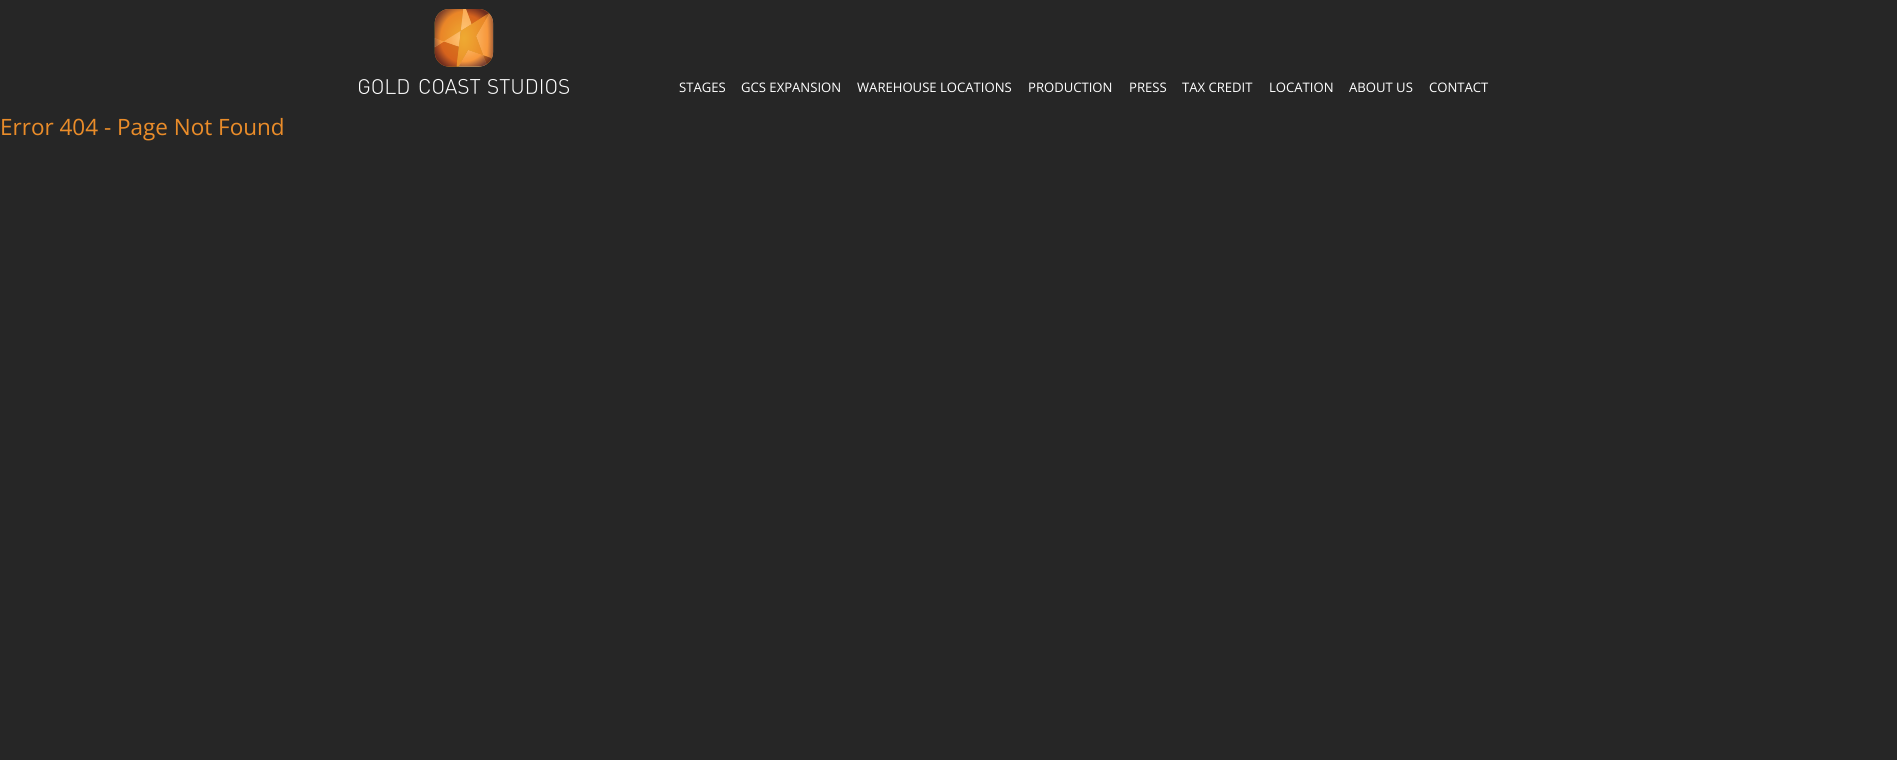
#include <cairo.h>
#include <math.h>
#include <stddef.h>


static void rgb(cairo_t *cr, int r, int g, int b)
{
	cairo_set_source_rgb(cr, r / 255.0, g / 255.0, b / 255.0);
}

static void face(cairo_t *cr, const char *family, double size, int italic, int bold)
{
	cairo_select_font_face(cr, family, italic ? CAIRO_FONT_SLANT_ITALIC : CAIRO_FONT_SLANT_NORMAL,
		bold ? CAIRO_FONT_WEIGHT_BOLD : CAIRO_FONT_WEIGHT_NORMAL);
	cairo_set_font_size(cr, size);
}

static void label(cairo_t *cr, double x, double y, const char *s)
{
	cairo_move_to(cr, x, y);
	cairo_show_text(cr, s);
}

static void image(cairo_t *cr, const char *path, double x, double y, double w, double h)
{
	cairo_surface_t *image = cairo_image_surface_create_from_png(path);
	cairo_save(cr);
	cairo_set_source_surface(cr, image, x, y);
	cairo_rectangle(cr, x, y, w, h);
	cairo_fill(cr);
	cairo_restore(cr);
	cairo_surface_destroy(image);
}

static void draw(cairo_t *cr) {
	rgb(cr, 38, 38, 38);
	cairo_paint(cr);
	image(cr, "image0.png", 359, 9, 210, 85);
	face(cr, "Open Sans", 13.1, 0, 0);
	rgb(cr, 255, 255, 255);
	label(cr, 679, 92, "STAGES");
	label(cr, 741, 92, "GCS EXPANSION");
	label(cr, 857, 92, "WAREHOUSE LOCATIONS");
	label(cr, 1028, 92, "PRODUCTION");
	label(cr, 1129, 92, "PRESS");
	label(cr, 1182, 92, "TAX CREDIT");
	label(cr, 1269, 92, "LOCATION");
	label(cr, 1349, 92, "ABOUT US");
	label(cr, 1429, 92, "CONTACT");
	face(cr, "Open Sans", 22.5, 0, 0);
	rgb(cr, 234, 140, 41);
	label(cr, 0, 135, "Error 404 - Page Not Found");
}

int main(void) {
	cairo_surface_t *surface = cairo_image_surface_create(CAIRO_FORMAT_RGB24, 1897, 760);
	cairo_t *cr = cairo_create(surface);
	cairo_font_options_t *options = cairo_font_options_create();
	cairo_font_options_set_hint_metrics(options, CAIRO_HINT_METRICS_OFF);
	cairo_font_options_set_hint_style(options, CAIRO_HINT_STYLE_NONE);
	cairo_set_font_options(cr, options);
	cairo_set_miter_limit(cr, 4);
	draw(cr);
	cairo_surface_write_to_png(surface, "render.png");
	cairo_font_options_destroy(options);
	cairo_destroy(cr);
	cairo_surface_destroy(surface);
	return 0;
}
